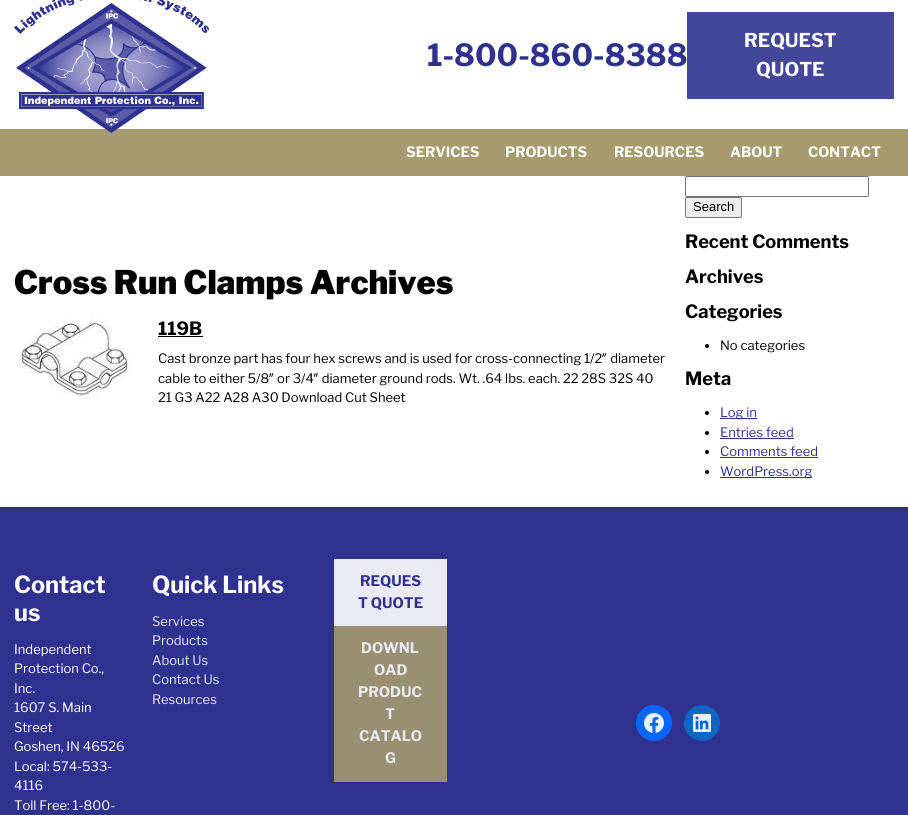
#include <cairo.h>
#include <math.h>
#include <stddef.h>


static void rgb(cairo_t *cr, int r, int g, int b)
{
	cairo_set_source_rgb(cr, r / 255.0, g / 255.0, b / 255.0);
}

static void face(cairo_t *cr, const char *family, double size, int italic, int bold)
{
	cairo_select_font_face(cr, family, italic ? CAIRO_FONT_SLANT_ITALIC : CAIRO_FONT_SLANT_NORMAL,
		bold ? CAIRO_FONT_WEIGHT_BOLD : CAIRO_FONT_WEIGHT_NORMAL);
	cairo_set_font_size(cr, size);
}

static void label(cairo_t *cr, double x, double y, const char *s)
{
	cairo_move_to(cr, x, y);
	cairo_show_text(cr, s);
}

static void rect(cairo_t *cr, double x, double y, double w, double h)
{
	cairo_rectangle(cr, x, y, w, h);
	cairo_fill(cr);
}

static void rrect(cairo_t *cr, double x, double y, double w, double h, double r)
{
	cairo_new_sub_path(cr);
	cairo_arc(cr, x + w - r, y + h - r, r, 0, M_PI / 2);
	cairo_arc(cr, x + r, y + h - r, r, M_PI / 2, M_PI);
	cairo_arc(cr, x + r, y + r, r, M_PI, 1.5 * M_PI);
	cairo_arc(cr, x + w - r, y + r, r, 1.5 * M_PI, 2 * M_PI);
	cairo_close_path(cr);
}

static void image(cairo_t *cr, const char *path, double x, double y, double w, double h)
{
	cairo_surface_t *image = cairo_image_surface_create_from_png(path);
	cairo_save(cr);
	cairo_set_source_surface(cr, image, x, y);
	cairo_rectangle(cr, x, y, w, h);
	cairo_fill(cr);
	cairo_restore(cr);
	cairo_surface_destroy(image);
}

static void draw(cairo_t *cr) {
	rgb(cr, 255, 255, 255);
	cairo_paint(cr);
	rgb(cr, 165, 155, 111);
	rect(cr, 0, 129, 908, 47);
	image(cr, "image0.png", 14, 0, 195, 133);
	face(cr, "Libre Franklin", 30.5, 0, 1);
	rgb(cr, 46, 49, 142);
	label(cr, 427, 66, "1-800-860-8388");
	rgb(cr, 67, 70, 153);
	rect(cr, 687, 12, 207, 87);
	face(cr, "Libre Franklin", 19, 0, 1);
	rgb(cr, 255, 255, 255);
	label(cr, 744, 47, "REQUEST");
	label(cr, 756, 76, "QUOTE");
	face(cr, "Libre Franklin", 14.25, 0, 1);
	label(cr, 406, 157, "SERVICES");
	label(cr, 505, 157, "PRODUCTS");
	label(cr, 614, 157, "RESOURCES");
	label(cr, 730, 157, "ABOUT");
	label(cr, 808, 157, "CONTACT");
	face(cr, "Libre Franklin Black", 32.5, 0, 0);
	rgb(cr, 0, 0, 0);
	label(cr, 14, 294, "Cross Run Clamps Archives");
	image(cr, "image1.png", 21, 318, 112, 78);
	face(cr, "Libre Franklin", 18.25, 0, 1);
	label(cr, 158, 335, "119B");
	rect(cr, 158, 336, 45, 1);
	face(cr, "Libre Franklin", 13, 0, 0);
	label(cr, 158, 363, "Cast bronze part has four hex screws and is used for cross-connecting 1/2″ diameter");
	label(cr, 158, 383, "cable to either 5/8″ or 3/4″ diameter ground rods. Wt. .64 lbs. each. 22 28S 32S 40");
	label(cr, 158, 402, "21 G3 A22 A28 A30 Download Cut Sheet");
	rrect(cr, 685.5, 176.5, 183, 20, 1.5);
	rgb(cr, 118, 118, 118);
	cairo_set_line_width(cr, 1);
	cairo_stroke(cr);
	rgb(cr, 239, 239, 239);
	rrect(cr, 685.5, 197.5, 56, 20, 1.5);
	cairo_fill_preserve(cr);
	rgb(cr, 118, 118, 118);
	cairo_stroke(cr);
	face(cr, "Liberation Sans", 13, 0, 0);
	rgb(cr, 0, 0, 0);
	label(cr, 693, 211, "Search");
	face(cr, "Libre Franklin", 18.25, 0, 1);
	label(cr, 685, 248, "Recent Comments");
	label(cr, 685, 283, "Archives");
	label(cr, 685, 318, "Categories");
	cairo_new_path(cr);
	cairo_arc(cr, 707, 346, 2, 0, 2 * M_PI);
	cairo_fill(cr);
	face(cr, "Libre Franklin", 13, 0, 0);
	label(cr, 720, 350, "No categories");
	face(cr, "Libre Franklin", 18.25, 0, 1);
	label(cr, 685, 385, "Meta");
	cairo_new_path(cr);
	cairo_arc(cr, 707, 413, 2, 0, 2 * M_PI);
	cairo_fill(cr);
	rgb(cr, 46, 49, 142);
	rect(cr, 720, 418, 37, 1);
	face(cr, "Libre Franklin", 13, 0, 0);
	label(cr, 720, 417, "Log in");
	rgb(cr, 0, 0, 0);
	cairo_new_path(cr);
	cairo_arc(cr, 707, 433, 2, 0, 2 * M_PI);
	cairo_fill(cr);
	rgb(cr, 46, 49, 142);
	label(cr, 720, 437, "Entries feed");
	rect(cr, 720, 438, 74, 1);
	rgb(cr, 0, 0, 0);
	cairo_new_path(cr);
	cairo_arc(cr, 707, 452, 2, 0, 2 * M_PI);
	cairo_fill(cr);
	rgb(cr, 46, 49, 142);
	label(cr, 720, 456, "Comments feed");
	rect(cr, 720, 457, 98, 1);
	rgb(cr, 0, 0, 0);
	cairo_new_path(cr);
	cairo_arc(cr, 707, 472, 2, 0, 2 * M_PI);
	cairo_fill(cr);
	rgb(cr, 46, 49, 142);
	rect(cr, 720, 477, 92, 1);
	label(cr, 720, 476, "WordPress.org");
	rect(cr, 0, 507, 908, 308);
	face(cr, "Libre Franklin", 23.5, 0, 1);
	rgb(cr, 255, 255, 255);
	label(cr, 14, 593, "Contact");
	label(cr, 14, 621, "us");
	face(cr, "Libre Franklin", 13, 0, 0);
	label(cr, 14, 654, "Independent");
	label(cr, 14, 673, "Protection Co.,");
	label(cr, 14, 693, "Inc.");
	label(cr, 14, 712, "1607 S. Main");
	label(cr, 14, 732, "Street");
	label(cr, 14, 751, "Goshen, IN 46526");
	label(cr, 14, 771, "Local: 574-533-");
	label(cr, 14, 790, "4116");
	label(cr, 14, 810, "Toll Free: 1-800-");
	face(cr, "Libre Franklin", 23.5, 0, 1);
	label(cr, 152, 593, "Quick Links");
	face(cr, "Libre Franklin", 13, 0, 0);
	rgb(cr, 234, 234, 244);
	label(cr, 152, 626, "Services");
	label(cr, 152, 645, "Products");
	label(cr, 152, 665, "About Us");
	label(cr, 152, 684, "Contact Us");
	label(cr, 152, 704, "Resources");
	rect(cr, 334, 559, 113, 67);
	face(cr, "Libre Franklin", 14.5, 0, 1);
	rgb(cr, 46, 49, 142);
	label(cr, 360, 586, "REQUES");
	label(cr, 358, 608, "T QUOTE");
	rgb(cr, 153, 144, 114);
	rect(cr, 334, 626, 113, 156);
	rgb(cr, 234, 234, 244);
	label(cr, 361, 653, "DOWNL");
	label(cr, 374, 675, "OAD");
	label(cr, 358, 697, "PRODUC");
	label(cr, 385, 719, "T");
	label(cr, 359, 741, "CATALO");
	label(cr, 385, 763, "G");
	rgb(cr, 8, 102, 255);
	cairo_new_path(cr);
	cairo_arc(cr, 654, 723, 18, 0, 2 * M_PI);
	cairo_fill(cr);
	image(cr, "image2.png", 644, 713, 20, 20);
	rgb(cr, 13, 102, 194);
	cairo_arc(cr, 702, 723, 18, 0, 2 * M_PI);
	cairo_fill(cr);
	image(cr, "image3.png", 693, 714, 18, 18);
}

int main(void) {
	cairo_surface_t *surface = cairo_image_surface_create(CAIRO_FORMAT_RGB24, 908, 815);
	cairo_t *cr = cairo_create(surface);
	cairo_font_options_t *options = cairo_font_options_create();
	cairo_font_options_set_hint_metrics(options, CAIRO_HINT_METRICS_OFF);
	cairo_font_options_set_hint_style(options, CAIRO_HINT_STYLE_NONE);
	cairo_set_font_options(cr, options);
	cairo_set_miter_limit(cr, 4);
	draw(cr);
	cairo_surface_write_to_png(surface, "render.png");
	cairo_font_options_destroy(options);
	cairo_destroy(cr);
	cairo_surface_destroy(surface);
	return 0;
}
